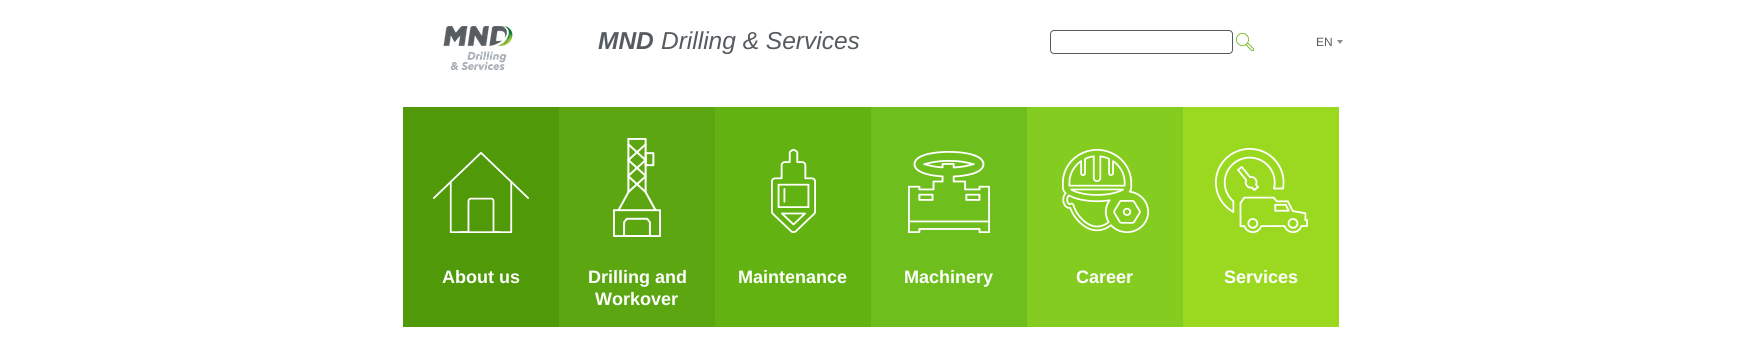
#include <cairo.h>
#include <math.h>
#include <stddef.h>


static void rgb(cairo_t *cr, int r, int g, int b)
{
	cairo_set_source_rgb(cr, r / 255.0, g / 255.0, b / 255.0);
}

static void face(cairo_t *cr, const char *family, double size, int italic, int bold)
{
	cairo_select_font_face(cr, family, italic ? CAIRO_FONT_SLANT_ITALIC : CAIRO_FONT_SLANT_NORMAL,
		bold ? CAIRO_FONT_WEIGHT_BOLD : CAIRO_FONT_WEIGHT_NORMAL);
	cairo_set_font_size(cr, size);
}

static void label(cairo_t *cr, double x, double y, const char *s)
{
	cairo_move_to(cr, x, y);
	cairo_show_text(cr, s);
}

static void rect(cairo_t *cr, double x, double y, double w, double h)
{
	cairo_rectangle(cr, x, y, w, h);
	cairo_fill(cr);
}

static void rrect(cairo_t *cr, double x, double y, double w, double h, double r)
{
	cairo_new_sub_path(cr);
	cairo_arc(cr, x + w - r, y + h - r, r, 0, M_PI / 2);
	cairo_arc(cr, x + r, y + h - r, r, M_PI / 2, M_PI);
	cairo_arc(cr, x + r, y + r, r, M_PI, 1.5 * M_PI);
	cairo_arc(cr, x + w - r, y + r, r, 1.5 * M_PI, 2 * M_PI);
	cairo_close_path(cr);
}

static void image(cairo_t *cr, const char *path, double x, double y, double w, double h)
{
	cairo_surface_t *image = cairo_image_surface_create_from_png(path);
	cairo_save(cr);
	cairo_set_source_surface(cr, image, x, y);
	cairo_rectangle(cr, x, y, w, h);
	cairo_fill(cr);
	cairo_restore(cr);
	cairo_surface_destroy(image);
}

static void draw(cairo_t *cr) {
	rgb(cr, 255, 255, 255);
	cairo_paint(cr);
	image(cr, "image0.png", 443, 26, 72, 44);
	face(cr, "Liberation Sans", 24.5, 1, 1);
	rgb(cr, 85, 91, 95);
	label(cr, 598, 49, "MND");
	face(cr, "Liberation Sans", 24.5, 1, 0);
	label(cr, 661, 49, "Drilling & Services");
	rrect(cr, 1050.5, 30.5, 182, 23, 3.5);
	cairo_set_line_width(cr, 1);
	cairo_stroke(cr);
	image(cr, "image1.png", 1236, 33, 18, 18);
	face(cr, "Liberation Sans", 12, 0, 0);
	label(cr, 1316, 46, "EN");
	rgb(cr, 140, 140, 140);
	cairo_new_path(cr);
	cairo_move_to(cr, 1337, 40);
	cairo_line_to(cr, 1343, 40);
	cairo_line_to(cr, 1340, 44);
	cairo_close_path(cr);
	cairo_fill(cr);
	rgb(cr, 80, 153, 8);
	rect(cr, 403, 107, 156, 220);
	image(cr, "image2.png", 433, 152, 96, 81);
	face(cr, "Liberation Sans", 18, 0, 1);
	rgb(cr, 255, 255, 255);
	label(cr, 442, 283, "About us");
	rgb(cr, 91, 166, 17);
	rect(cr, 559, 107, 156, 220);
	image(cr, "image3.png", 613, 138, 48, 99);
	rgb(cr, 255, 255, 255);
	label(cr, 588, 283, "Drilling and");
	label(cr, 595, 305, "Workover");
	rgb(cr, 98, 179, 18);
	rect(cr, 715, 107, 156, 220);
	image(cr, "image4.png", 771, 149, 45, 84);
	rgb(cr, 255, 255, 255);
	label(cr, 738, 283, "Maintenance");
	rgb(cr, 110, 191, 29);
	rect(cr, 871, 107, 156, 220);
	image(cr, "image5.png", 908, 151, 82, 82);
	rgb(cr, 255, 255, 255);
	label(cr, 904, 283, "Machinery");
	rgb(cr, 132, 204, 31);
	rect(cr, 1027, 107, 156, 220);
	image(cr, "image6.png", 1062, 149, 87, 84);
	rgb(cr, 255, 255, 255);
	label(cr, 1076, 283, "Career");
	rgb(cr, 155, 217, 33);
	rect(cr, 1183, 107, 156, 220);
	image(cr, "image7.png", 1215, 148, 93, 85);
	rgb(cr, 255, 255, 255);
	label(cr, 1224, 283, "Services");
}

int main(void) {
	cairo_surface_t *surface = cairo_image_surface_create(CAIRO_FORMAT_RGB24, 1746, 352);
	cairo_t *cr = cairo_create(surface);
	cairo_font_options_t *options = cairo_font_options_create();
	cairo_font_options_set_hint_metrics(options, CAIRO_HINT_METRICS_OFF);
	cairo_font_options_set_hint_style(options, CAIRO_HINT_STYLE_NONE);
	cairo_set_font_options(cr, options);
	cairo_set_miter_limit(cr, 4);
	draw(cr);
	cairo_surface_write_to_png(surface, "render.png");
	cairo_font_options_destroy(options);
	cairo_destroy(cr);
	cairo_surface_destroy(surface);
	return 0;
}
